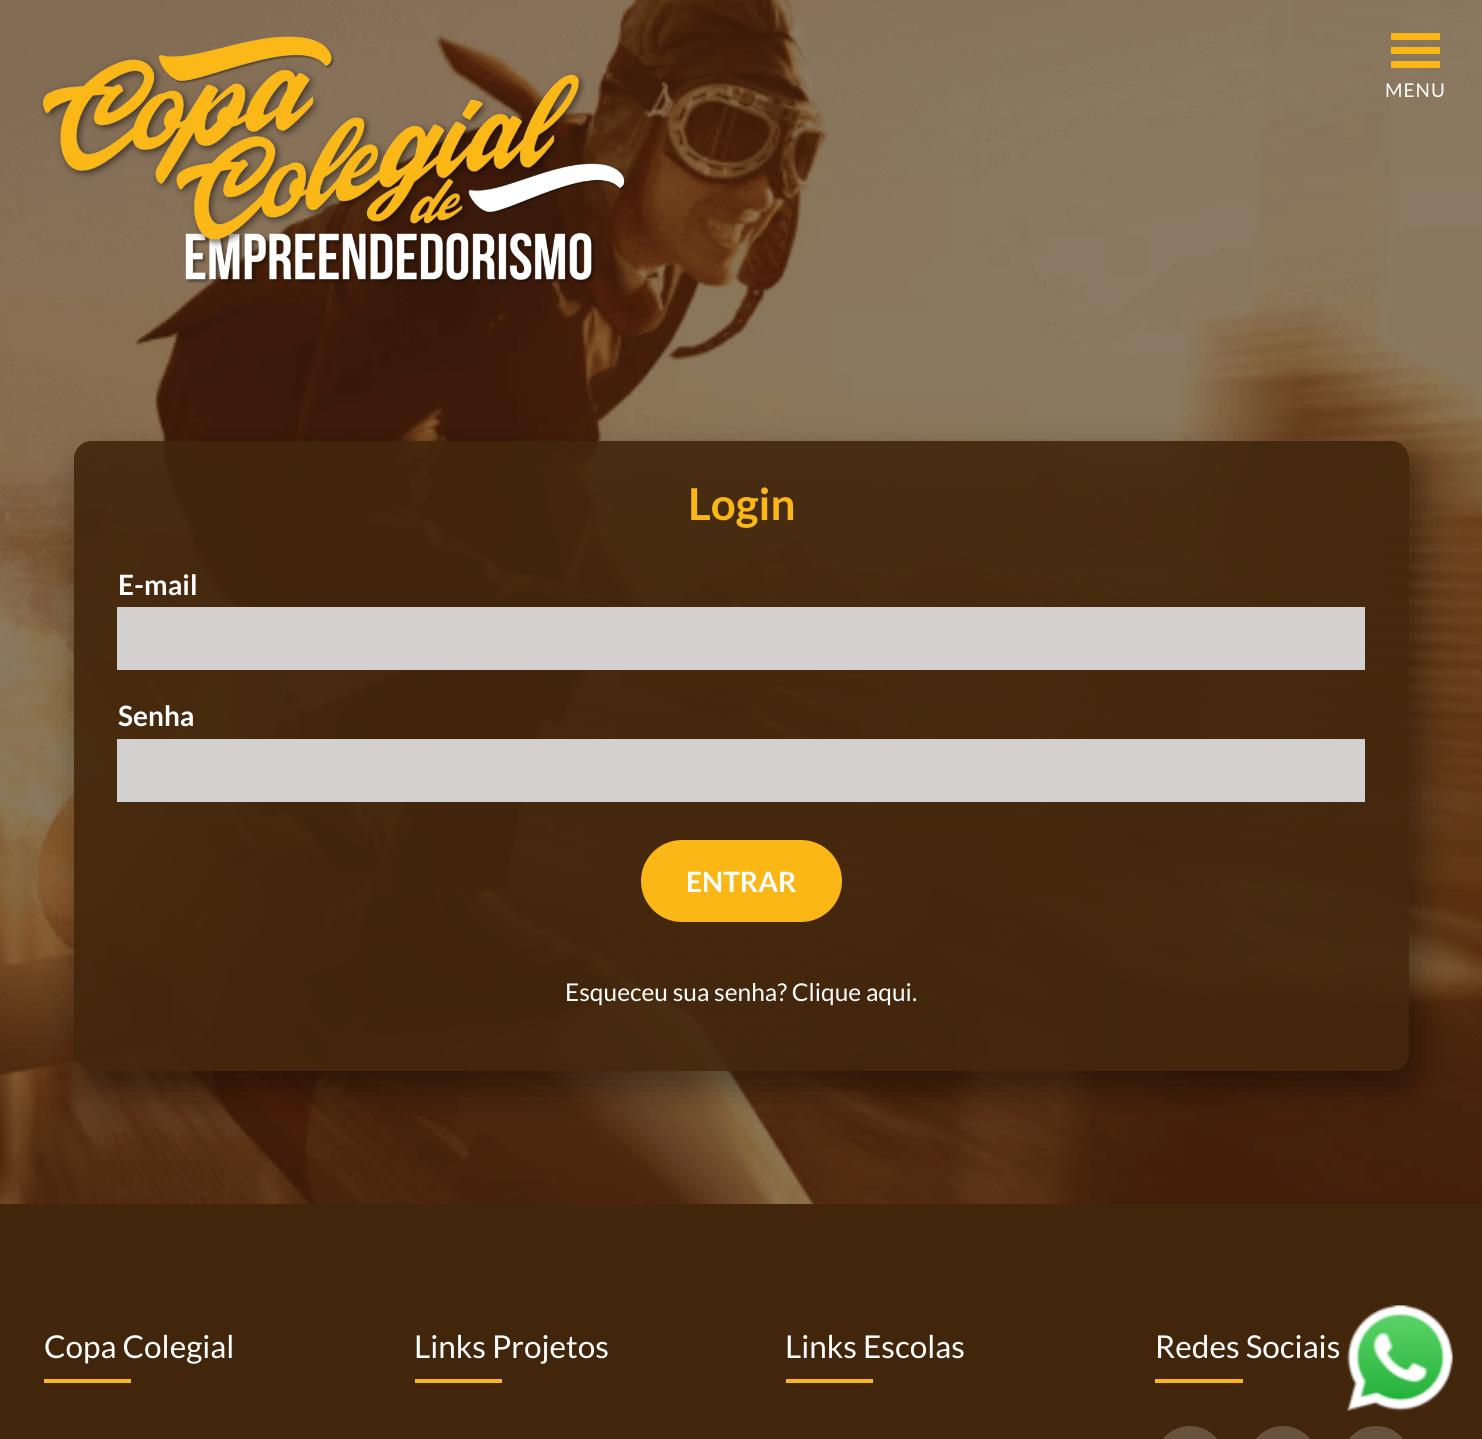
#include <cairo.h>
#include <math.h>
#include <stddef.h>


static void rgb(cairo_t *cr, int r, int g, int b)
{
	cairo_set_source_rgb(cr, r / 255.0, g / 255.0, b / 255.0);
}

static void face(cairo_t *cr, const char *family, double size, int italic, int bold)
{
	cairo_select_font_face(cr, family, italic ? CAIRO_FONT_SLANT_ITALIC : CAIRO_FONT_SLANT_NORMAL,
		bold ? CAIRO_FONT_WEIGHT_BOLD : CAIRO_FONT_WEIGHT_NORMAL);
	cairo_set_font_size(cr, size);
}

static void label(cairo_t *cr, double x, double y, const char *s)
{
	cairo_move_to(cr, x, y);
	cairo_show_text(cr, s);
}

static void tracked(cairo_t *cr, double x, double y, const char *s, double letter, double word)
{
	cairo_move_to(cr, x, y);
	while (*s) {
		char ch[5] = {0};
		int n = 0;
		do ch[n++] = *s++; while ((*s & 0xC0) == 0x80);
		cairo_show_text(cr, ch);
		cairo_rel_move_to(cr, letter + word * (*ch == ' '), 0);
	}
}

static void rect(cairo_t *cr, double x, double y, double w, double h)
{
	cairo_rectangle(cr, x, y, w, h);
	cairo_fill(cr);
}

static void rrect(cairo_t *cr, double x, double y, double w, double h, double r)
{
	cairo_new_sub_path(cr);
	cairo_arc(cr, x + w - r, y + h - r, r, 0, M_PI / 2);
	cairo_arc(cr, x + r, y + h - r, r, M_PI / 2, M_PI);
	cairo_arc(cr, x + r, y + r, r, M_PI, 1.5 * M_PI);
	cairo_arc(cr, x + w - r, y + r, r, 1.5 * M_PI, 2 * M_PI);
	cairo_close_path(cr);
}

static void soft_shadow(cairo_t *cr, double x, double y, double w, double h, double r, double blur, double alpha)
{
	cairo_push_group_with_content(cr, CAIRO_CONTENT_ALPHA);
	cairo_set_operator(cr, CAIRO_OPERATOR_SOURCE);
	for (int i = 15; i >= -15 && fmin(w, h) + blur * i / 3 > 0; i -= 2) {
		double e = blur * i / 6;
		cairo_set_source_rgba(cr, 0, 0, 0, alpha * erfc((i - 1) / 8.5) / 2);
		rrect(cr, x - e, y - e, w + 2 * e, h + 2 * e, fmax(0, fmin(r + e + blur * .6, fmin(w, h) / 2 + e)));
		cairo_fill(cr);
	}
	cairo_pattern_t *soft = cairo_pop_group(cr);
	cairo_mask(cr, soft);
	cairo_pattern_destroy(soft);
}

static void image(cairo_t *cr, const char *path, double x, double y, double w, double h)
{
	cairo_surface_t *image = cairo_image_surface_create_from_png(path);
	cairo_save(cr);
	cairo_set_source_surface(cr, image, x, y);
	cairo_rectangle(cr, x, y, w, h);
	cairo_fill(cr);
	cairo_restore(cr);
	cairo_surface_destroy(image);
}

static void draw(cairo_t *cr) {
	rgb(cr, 255, 255, 255);
	cairo_paint(cr);
	image(cr, "image0.png", 0, 0, 1482, 1204);
	rgb(cr, 250, 183, 22);
	rect(cr, 1391, 61, 49, 7);
	rect(cr, 1391, 33, 49, 7);
	rect(cr, 1391, 47, 49, 7);
	face(cr, "Lato", 19, 0, 0);
	rgb(cr, 255, 255, 255);
	tracked(cr, 1385, 97, "MENU", 1, 0);
	image(cr, "image1.png", 41, 36, 586, 248);
	cairo_save(cr);
	cairo_set_fill_rule(cr, CAIRO_FILL_RULE_EVEN_ODD);
	cairo_new_path(cr);
	cairo_move_to(cr, 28, 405);
	cairo_line_to(cr, 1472, 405);
	cairo_line_to(cr, 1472, 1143);
	cairo_line_to(cr, 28, 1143);
	cairo_close_path(cr);
	cairo_move_to(cr, 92, 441);
	cairo_line_to(cr, 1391, 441);
	cairo_curve_to(cr, 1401, 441, 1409, 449, 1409, 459);
	cairo_line_to(cr, 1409, 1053);
	cairo_curve_to(cr, 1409, 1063, 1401, 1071, 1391, 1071);
	cairo_line_to(cr, 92, 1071);
	cairo_curve_to(cr, 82, 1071, 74, 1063, 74, 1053);
	cairo_line_to(cr, 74, 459);
	cairo_curve_to(cr, 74, 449, 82, 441, 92, 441);
	cairo_close_path(cr);
	cairo_clip(cr);
	rgb(cr, 0, 0, 0);
	soft_shadow(cr, 82, 459, 1336, 630, 18, 17.5, 0.4);
	cairo_restore(cr);
	cairo_set_source_rgba(cr, 0.259, 0.149, 0.047, 0.9);
	rrect(cr, 74, 441, 1335, 630, 18);
	cairo_fill(cr);
	face(cr, "Lato", 44, 0, 1);
	rgb(cr, 250, 183, 22);
	label(cr, 688, 520, "Login");
	face(cr, "Lato", 28, 0, 1);
	rgb(cr, 255, 255, 255);
	label(cr, 118, 595, "E-mail");
	rgb(cr, 211, 208, 208);
	rect(cr, 117, 607, 1248, 63);
	rgb(cr, 255, 255, 255);
	label(cr, 118, 726, "Senha");
	rgb(cr, 211, 208, 208);
	rect(cr, 117, 739, 1248, 63);
	rgb(cr, 250, 183, 22);
	rrect(cr, 643, 842, 197, 78, 39);
	cairo_fill_preserve(cr);
	cairo_set_line_width(cr, 4);
	cairo_stroke(cr);
	rgb(cr, 255, 255, 255);
	label(cr, 686, 892, "ENTRAR");
	face(cr, "Lato", 24.5, 0, 0);
	label(cr, 565, 1001, "Esqueceu sua senha? Clique aqui.");
	rgb(cr, 66, 38, 12);
	rect(cr, 0, 1204, 1482, 235);
	face(cr, "Lato", 31.5, 0, 0);
	rgb(cr, 255, 255, 255);
	label(cr, 44, 1358, "Copa Colegial");
	rgb(cr, 250, 183, 22);
	rect(cr, 44, 1379, 87, 4);
	rgb(cr, 255, 255, 255);
	label(cr, 414, 1358, "Links Projetos");
	rgb(cr, 250, 183, 22);
	rect(cr, 415, 1379, 87, 4);
	rgb(cr, 255, 255, 255);
	label(cr, 785, 1358, "Links Escolas");
	rgb(cr, 250, 183, 22);
	rect(cr, 786, 1379, 87, 4);
	rgb(cr, 255, 255, 255);
	label(cr, 1155, 1358, "Redes Sociais");
	rgb(cr, 250, 183, 22);
	rect(cr, 1155, 1379, 88, 4);
	rgb(cr, 104, 81, 61);
	rrect(cr, 1155, 1426, 70, 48, 35);
	cairo_fill(cr);
	rrect(cr, 1248, 1426, 70, 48, 35);
	cairo_fill(cr);
	rrect(cr, 1341, 1426, 70, 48, 35);
	cairo_fill(cr);
	image(cr, "image2.png", 1347, 1305, 106, 106);
}

int main(void) {
	cairo_surface_t *surface = cairo_image_surface_create(CAIRO_FORMAT_RGB24, 1482, 1439);
	cairo_t *cr = cairo_create(surface);
	cairo_font_options_t *options = cairo_font_options_create();
	cairo_font_options_set_hint_metrics(options, CAIRO_HINT_METRICS_OFF);
	cairo_font_options_set_hint_style(options, CAIRO_HINT_STYLE_NONE);
	cairo_set_font_options(cr, options);
	cairo_set_miter_limit(cr, 4);
	draw(cr);
	cairo_surface_write_to_png(surface, "render.png");
	cairo_font_options_destroy(options);
	cairo_destroy(cr);
	cairo_surface_destroy(surface);
	return 0;
}
